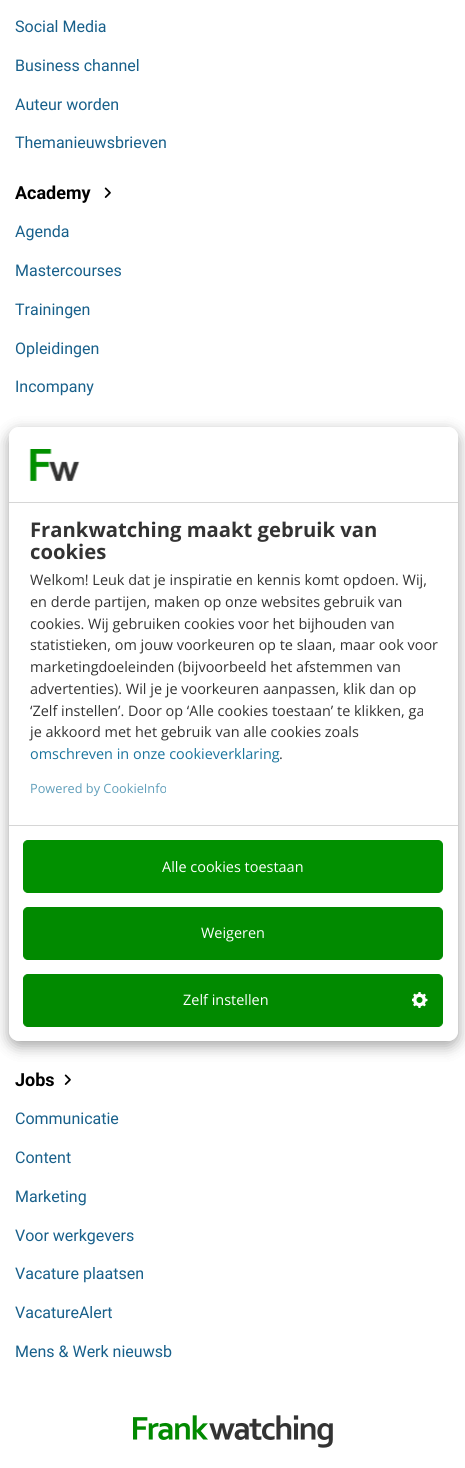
#include <cairo.h>
#include <math.h>
#include <stddef.h>


static void rgb(cairo_t *cr, int r, int g, int b)
{
	cairo_set_source_rgb(cr, r / 255.0, g / 255.0, b / 255.0);
}

static void face(cairo_t *cr, const char *family, double size, int italic, int bold)
{
	cairo_select_font_face(cr, family, italic ? CAIRO_FONT_SLANT_ITALIC : CAIRO_FONT_SLANT_NORMAL,
		bold ? CAIRO_FONT_WEIGHT_BOLD : CAIRO_FONT_WEIGHT_NORMAL);
	cairo_set_font_size(cr, size);
}

static void label(cairo_t *cr, double x, double y, const char *s)
{
	cairo_move_to(cr, x, y);
	cairo_show_text(cr, s);
}

static void rect(cairo_t *cr, double x, double y, double w, double h)
{
	cairo_rectangle(cr, x, y, w, h);
	cairo_fill(cr);
}

static void rrect(cairo_t *cr, double x, double y, double w, double h, double r)
{
	cairo_new_sub_path(cr);
	cairo_arc(cr, x + w - r, y + h - r, r, 0, M_PI / 2);
	cairo_arc(cr, x + r, y + h - r, r, M_PI / 2, M_PI);
	cairo_arc(cr, x + r, y + r, r, M_PI, 1.5 * M_PI);
	cairo_arc(cr, x + w - r, y + r, r, 1.5 * M_PI, 2 * M_PI);
	cairo_close_path(cr);
}

static void soft_shadow(cairo_t *cr, double x, double y, double w, double h, double r, double blur, double alpha)
{
	cairo_push_group_with_content(cr, CAIRO_CONTENT_ALPHA);
	cairo_set_operator(cr, CAIRO_OPERATOR_SOURCE);
	for (int i = 15; i >= -15 && fmin(w, h) + blur * i / 3 > 0; i -= 2) {
		double e = blur * i / 6;
		cairo_set_source_rgba(cr, 0, 0, 0, alpha * erfc((i - 1) / 8.5) / 2);
		rrect(cr, x - e, y - e, w + 2 * e, h + 2 * e, fmax(0, fmin(r + e + blur * .6, fmin(w, h) / 2 + e)));
		cairo_fill(cr);
	}
	cairo_pattern_t *soft = cairo_pop_group(cr);
	cairo_mask(cr, soft);
	cairo_pattern_destroy(soft);
}

static void image(cairo_t *cr, const char *path, double x, double y, double w, double h)
{
	cairo_surface_t *image = cairo_image_surface_create_from_png(path);
	cairo_save(cr);
	cairo_set_source_surface(cr, image, x, y);
	cairo_rectangle(cr, x, y, w, h);
	cairo_fill(cr);
	cairo_restore(cr);
	cairo_surface_destroy(image);
}

static void draw(cairo_t *cr) {
	rgb(cr, 255, 255, 255);
	cairo_paint(cr);
	face(cr, "Roboto", 16, 0, 0);
	rgb(cr, 24, 96, 139);
	label(cr, 15, 32, "Social Media");
	label(cr, 15, 71, "Business channel");
	label(cr, 15, 110, "Auteur worden");
	label(cr, 15, 148, "Themanieuwsbrieven");
	face(cr, "Roboto", 18, 0, 1);
	rgb(cr, 0, 0, 0);
	label(cr, 15, 199, "Academy");
	image(cr, "image0.png", 104, 187, 7, 11);
	face(cr, "Roboto", 16, 0, 0);
	rgb(cr, 24, 96, 139);
	label(cr, 15, 237, "Agenda");
	label(cr, 15, 276, "Mastercourses");
	label(cr, 15, 315, "Trainingen");
	label(cr, 15, 354, "Opleidingen");
	label(cr, 15, 392, "Incompany");
	face(cr, "Roboto", 18, 0, 1);
	rgb(cr, 0, 0, 0);
	label(cr, 15, 1086, "Jobs");
	image(cr, "image0.png", 64, 1074, 7, 11);
	face(cr, "Roboto", 16, 0, 0);
	rgb(cr, 24, 96, 139);
	label(cr, 15, 1124, "Communicatie");
	label(cr, 15, 1163, "Content");
	label(cr, 15, 1202, "Marketing");
	label(cr, 15, 1241, "Voor werkgevers");
	label(cr, 15, 1279, "Vacature plaatsen");
	label(cr, 15, 1318, "VacatureAlert");
	label(cr, 15, 1357, "Mens & Werk nieuwsb");
	image(cr, "image1.png", 133, 1415, 200, 33);
	rgb(cr, 0, 0, 0);
	soft_shadow(cr, 9, 432, 449, 614, 10, 7.5, 0.19);
	soft_shadow(cr, 9, 432, 449, 614, 10, 7.5, 0.2);
	rgb(cr, 255, 255, 255);
	rrect(cr, 9, 427, 449, 614, 10);
	cairo_fill(cr);
	cairo_new_path(cr);
	cairo_move_to(cr, 19, 427);
	cairo_line_to(cr, 448, 427);
	cairo_curve_to(cr, 453.5, 427, 458, 431.5, 458, 437);
	cairo_line_to(cr, 458, 503);
	cairo_line_to(cr, 9, 503);
	cairo_line_to(cr, 9, 437);
	cairo_curve_to(cr, 9, 431.5, 13.5, 427, 19, 427);
	cairo_close_path(cr);
	cairo_fill(cr);
	rgb(cr, 214, 214, 214);
	rect(cr, 9, 502, 449, 1);
	image(cr, "image2.png", 29, 449, 51, 32);
	face(cr, "Open Sans", 20.25, 0, 1);
	rgb(cr, 51, 51, 51);
	label(cr, 30, 537, "Frankwatching maakt gebruik van");
	label(cr, 30, 559, "cookies");
	face(cr, "Open Sans", 14.45, 0, 0);
	label(cr, 30, 585, "Welkom! Leuk dat je inspiratie en kennis komt opdoen. Wij,");
	label(cr, 30, 607, "en derde partijen, maken op onze websites gebruik van");
	label(cr, 30, 629, "cookies. Wij gebruiken cookies voor het bijhouden van");
	label(cr, 30, 650, "statistieken, om jouw voorkeuren op te slaan, maar ook voor");
	label(cr, 30, 672, "marketingdoeleinden (bijvoorbeeld het afstemmen van");
	label(cr, 30, 694, "advertenties). Wil je je voorkeuren aanpassen, klik dan op");
	label(cr, 30, 716, "‘Zelf instellen’. Door op ‘Alle cookies toestaan’ te klikken, ga");
	label(cr, 30, 737, "je akkoord met het gebruik van alle cookies zoals");
	rgb(cr, 26, 116, 157);
	label(cr, 30, 759, "omschreven in onze cookieverklaring");
	rgb(cr, 51, 51, 51);
	label(cr, 279, 759, ".");
	face(cr, "Open Sans", 12.75, 0, 0);
	rgb(cr, 95, 158, 186);
	label(cr, 30, 793, "Powered by CookieInfo");
	rgb(cr, 255, 255, 255);
	cairo_new_path(cr);
	cairo_move_to(cr, 9, 825);
	cairo_line_to(cr, 458, 825);
	cairo_line_to(cr, 458, 1031);
	cairo_curve_to(cr, 458, 1036.5, 453.5, 1041, 448, 1041);
	cairo_line_to(cr, 19, 1041);
	cairo_curve_to(cr, 13.5, 1041, 9, 1036.5, 9, 1031);
	cairo_close_path(cr);
	cairo_fill(cr);
	rgb(cr, 214, 214, 214);
	rect(cr, 9, 825, 449, 1);
	rgb(cr, 1, 144, 0);
	rrect(cr, 23.5, 840.5, 419, 52, 4.5);
	cairo_fill_preserve(cr);
	cairo_set_line_width(cr, 1);
	cairo_stroke(cr);
	face(cr, "Open Sans", 14.45, 0, 0);
	rgb(cr, 255, 255, 255);
	label(cr, 162, 872, "Alle cookies toestaan");
	rgb(cr, 1, 138, 0);
	rrect(cr, 23.5, 907.5, 419, 52, 4.5);
	cairo_fill_preserve(cr);
	cairo_stroke(cr);
	rgb(cr, 255, 255, 255);
	label(cr, 201, 938, "Weigeren");
	rgb(cr, 1, 138, 0);
	rrect(cr, 23.5, 974.5, 419, 52, 4.5);
	cairo_fill_preserve(cr);
	cairo_stroke(cr);
	rgb(cr, 255, 255, 255);
	label(cr, 183, 1005, "Zelf instellen");
	image(cr, "image3.png", 412, 992, 16, 16);
}

int main(void) {
	cairo_surface_t *surface = cairo_image_surface_create(CAIRO_FORMAT_RGB24, 465, 1468);
	cairo_t *cr = cairo_create(surface);
	cairo_font_options_t *options = cairo_font_options_create();
	cairo_font_options_set_hint_metrics(options, CAIRO_HINT_METRICS_OFF);
	cairo_font_options_set_hint_style(options, CAIRO_HINT_STYLE_NONE);
	cairo_set_font_options(cr, options);
	cairo_set_miter_limit(cr, 4);
	draw(cr);
	cairo_surface_write_to_png(surface, "render.png");
	cairo_font_options_destroy(options);
	cairo_destroy(cr);
	cairo_surface_destroy(surface);
	return 0;
}
